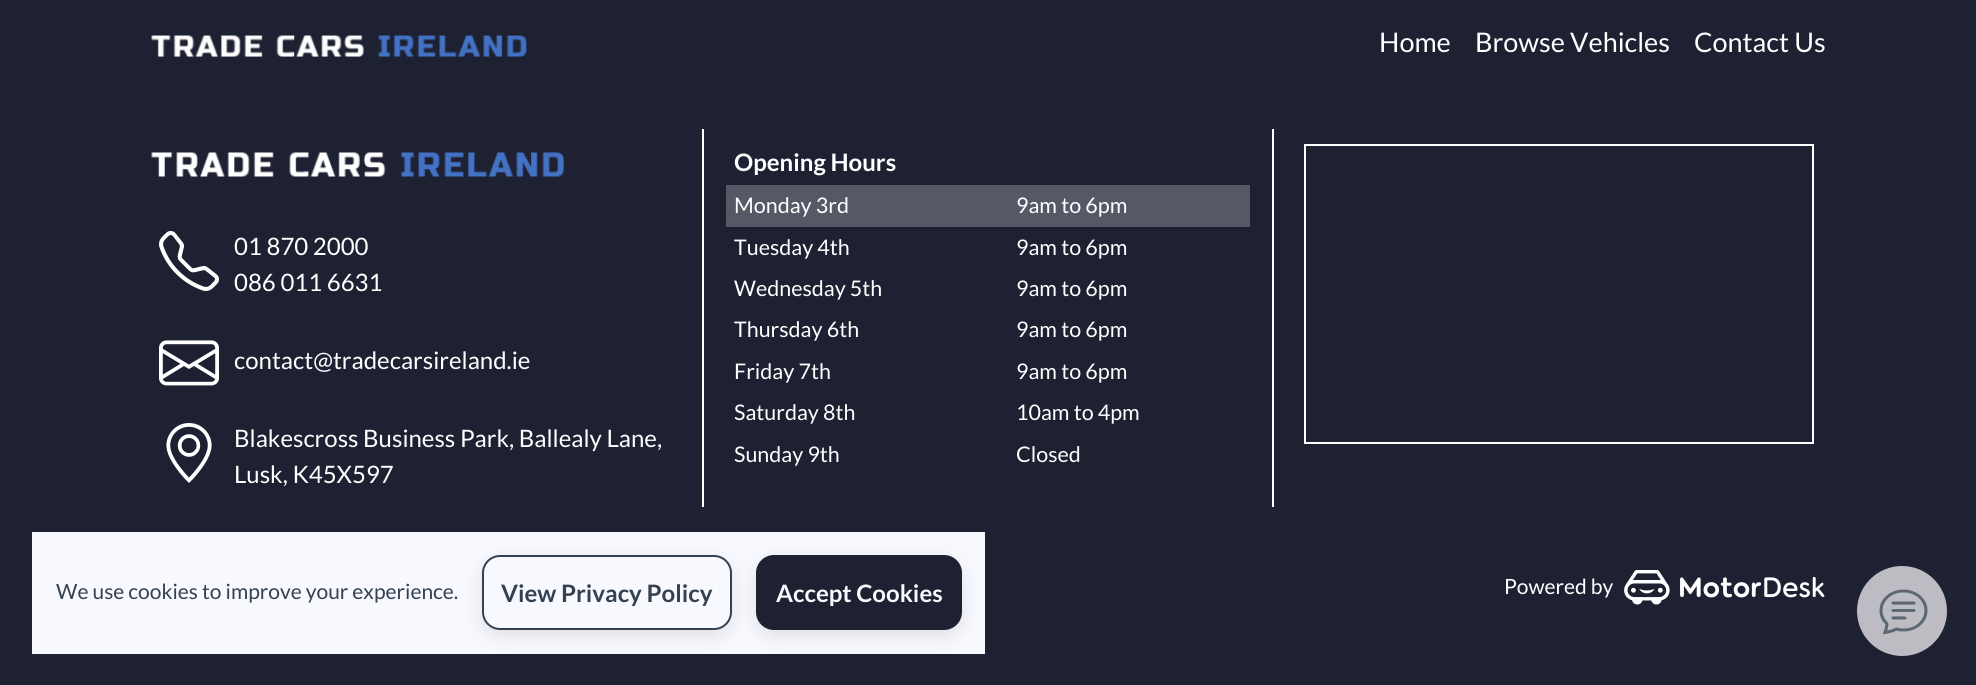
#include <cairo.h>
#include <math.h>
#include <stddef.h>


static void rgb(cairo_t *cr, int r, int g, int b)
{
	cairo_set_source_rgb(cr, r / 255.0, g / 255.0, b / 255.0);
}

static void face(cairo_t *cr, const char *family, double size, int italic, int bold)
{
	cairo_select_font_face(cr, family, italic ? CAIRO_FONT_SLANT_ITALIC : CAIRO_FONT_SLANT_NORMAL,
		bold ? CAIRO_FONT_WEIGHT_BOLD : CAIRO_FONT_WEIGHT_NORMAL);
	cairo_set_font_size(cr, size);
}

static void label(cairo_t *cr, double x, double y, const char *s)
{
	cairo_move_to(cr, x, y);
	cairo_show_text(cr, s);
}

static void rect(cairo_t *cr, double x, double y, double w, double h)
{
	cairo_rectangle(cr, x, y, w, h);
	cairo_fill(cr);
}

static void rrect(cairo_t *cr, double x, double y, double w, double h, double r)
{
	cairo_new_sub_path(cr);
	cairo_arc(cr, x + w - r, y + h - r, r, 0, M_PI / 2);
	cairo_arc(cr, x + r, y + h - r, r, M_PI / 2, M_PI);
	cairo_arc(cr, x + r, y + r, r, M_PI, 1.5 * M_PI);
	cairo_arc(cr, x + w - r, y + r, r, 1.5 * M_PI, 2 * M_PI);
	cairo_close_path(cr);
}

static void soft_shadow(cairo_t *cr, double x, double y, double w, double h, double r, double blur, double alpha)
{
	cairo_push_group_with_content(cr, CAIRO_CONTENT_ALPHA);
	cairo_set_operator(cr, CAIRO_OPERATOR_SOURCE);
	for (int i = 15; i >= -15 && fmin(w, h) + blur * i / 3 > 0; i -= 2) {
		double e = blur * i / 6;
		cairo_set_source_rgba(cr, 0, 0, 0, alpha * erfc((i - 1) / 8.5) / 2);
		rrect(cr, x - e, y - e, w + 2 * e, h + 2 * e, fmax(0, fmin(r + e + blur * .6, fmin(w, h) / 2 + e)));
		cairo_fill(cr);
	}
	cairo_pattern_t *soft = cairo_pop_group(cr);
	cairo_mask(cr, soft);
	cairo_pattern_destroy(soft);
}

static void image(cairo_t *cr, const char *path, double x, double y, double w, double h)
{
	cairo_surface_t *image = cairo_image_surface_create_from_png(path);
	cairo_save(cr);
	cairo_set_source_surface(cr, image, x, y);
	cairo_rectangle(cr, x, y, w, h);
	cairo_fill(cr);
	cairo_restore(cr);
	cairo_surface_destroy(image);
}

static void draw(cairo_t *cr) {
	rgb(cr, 30, 33, 50);
	cairo_paint(cr);
	image(cr, "image0.png", 151, 35, 376, 22);
	face(cr, "Lato", 27, 0, 0);
	rgb(cr, 255, 255, 255);
	label(cr, 1379, 52, "Home");
	label(cr, 1475, 52, "Browse Vehicles");
	label(cr, 1694, 52, "Contact Us");
	rect(cr, 702, 129, 2, 378);
	image(cr, "image1.png", 151, 152, 413, 25);
	image(cr, "image2.png", 159, 231, 60, 60);
	face(cr, "Lato", 24, 0, 0);
	label(cr, 234, 255, "01 870 2000");
	label(cr, 234, 291, "086 011 6631");
	image(cr, "image3.png", 159, 340, 60, 46);
	label(cr, 234, 369, "contact@tradecarsireland.ie");
	image(cr, "image4.png", 166, 423, 46, 60);
	label(cr, 234, 447, "Blakescross Business Park, Ballealy Lane,");
	label(cr, 234, 483, "Lusk, K45X597");
	rect(cr, 1272, 129, 2, 378);
	face(cr, "Lato", 24, 0, 1);
	label(cr, 734, 171, "Opening Hours");
	rgb(cr, 86, 89, 101);
	rect(cr, 726, 185, 524, 42);
	face(cr, "Lato", 21.5, 0, 0);
	rgb(cr, 255, 255, 255);
	label(cr, 734, 213, "Monday 3rd");
	label(cr, 1016, 213, "9am to 6pm");
	label(cr, 734, 255, "Tuesday 4th");
	label(cr, 1016, 255, "9am to 6pm");
	label(cr, 734, 296, "Wednesday 5th");
	label(cr, 1016, 296, "9am to 6pm");
	label(cr, 734, 337, "Thursday 6th");
	label(cr, 1016, 337, "9am to 6pm");
	label(cr, 734, 379, "Friday 7th");
	label(cr, 1016, 379, "9am to 6pm");
	label(cr, 734, 420, "Saturday 8th");
	label(cr, 1016, 420, "10am to 4pm");
	label(cr, 734, 462, "Sunday 9th");
	label(cr, 1016, 462, "Closed");
	cairo_rectangle(cr, 1305, 145, 508, 298);
	cairo_stroke(cr);
	face(cr, "Lato", 21, 0, 0);
	label(cr, 1504, 594, "Powered by");
	image(cr, "image5.png", 1624, 570, 201, 35);
	rgb(cr, 248, 249, 254);
	rect(cr, 32, 532, 953, 122);
	rgb(cr, 51, 65, 80);
	label(cr, 56, 599, "We use cookies to improve your experience.");
	cairo_save(cr);
	cairo_set_fill_rule(cr, CAIRO_FILL_RULE_EVEN_ODD);
	cairo_new_path(cr);
	cairo_move_to(cr, 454, 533);
	cairo_line_to(cr, 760, 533);
	cairo_line_to(cr, 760, 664);
	cairo_line_to(cr, 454, 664);
	cairo_close_path(cr);
	cairo_move_to(cr, 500, 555);
	cairo_line_to(cr, 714, 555);
	cairo_curve_to(cr, 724, 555, 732, 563, 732, 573);
	cairo_line_to(cr, 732, 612);
	cairo_curve_to(cr, 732, 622, 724, 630, 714, 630);
	cairo_line_to(cr, 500, 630);
	cairo_curve_to(cr, 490, 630, 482, 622, 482, 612);
	cairo_line_to(cr, 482, 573);
	cairo_curve_to(cr, 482, 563, 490, 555, 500, 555);
	cairo_close_path(cr);
	cairo_clip(cr);
	rgb(cr, 0, 0, 0);
	soft_shadow(cr, 482, 561, 250, 75, 18, 9, 0.1);
	cairo_restore(cr);
	rrect(cr, 483, 556, 248, 73, 17);
	cairo_stroke(cr);
	face(cr, "Lato", 24, 0, 1);
	label(cr, 501, 602, "View Privacy Policy");
	rgb(cr, 0, 0, 0);
	soft_shadow(cr, 756, 561, 206, 75, 18, 9, 0.1);
	rgb(cr, 30, 33, 50);
	rrect(cr, 757, 556, 204, 73, 17);
	cairo_fill_preserve(cr);
	cairo_stroke(cr);
	rgb(cr, 248, 249, 254);
	label(cr, 776, 602, "Accept Cookies");
	rgb(cr, 188, 188, 194);
	cairo_new_path(cr);
	cairo_arc(cr, 1902, 611, 45, 0, 2 * M_PI);
	cairo_fill(cr);
	image(cr, "image6.png", 1879, 589, 49, 46);
}

int main(void) {
	cairo_surface_t *surface = cairo_image_surface_create(CAIRO_FORMAT_RGB24, 1976, 685);
	cairo_t *cr = cairo_create(surface);
	cairo_font_options_t *options = cairo_font_options_create();
	cairo_font_options_set_hint_metrics(options, CAIRO_HINT_METRICS_OFF);
	cairo_font_options_set_hint_style(options, CAIRO_HINT_STYLE_NONE);
	cairo_set_font_options(cr, options);
	cairo_set_miter_limit(cr, 4);
	draw(cr);
	cairo_surface_write_to_png(surface, "render.png");
	cairo_font_options_destroy(options);
	cairo_destroy(cr);
	cairo_surface_destroy(surface);
	return 0;
}
